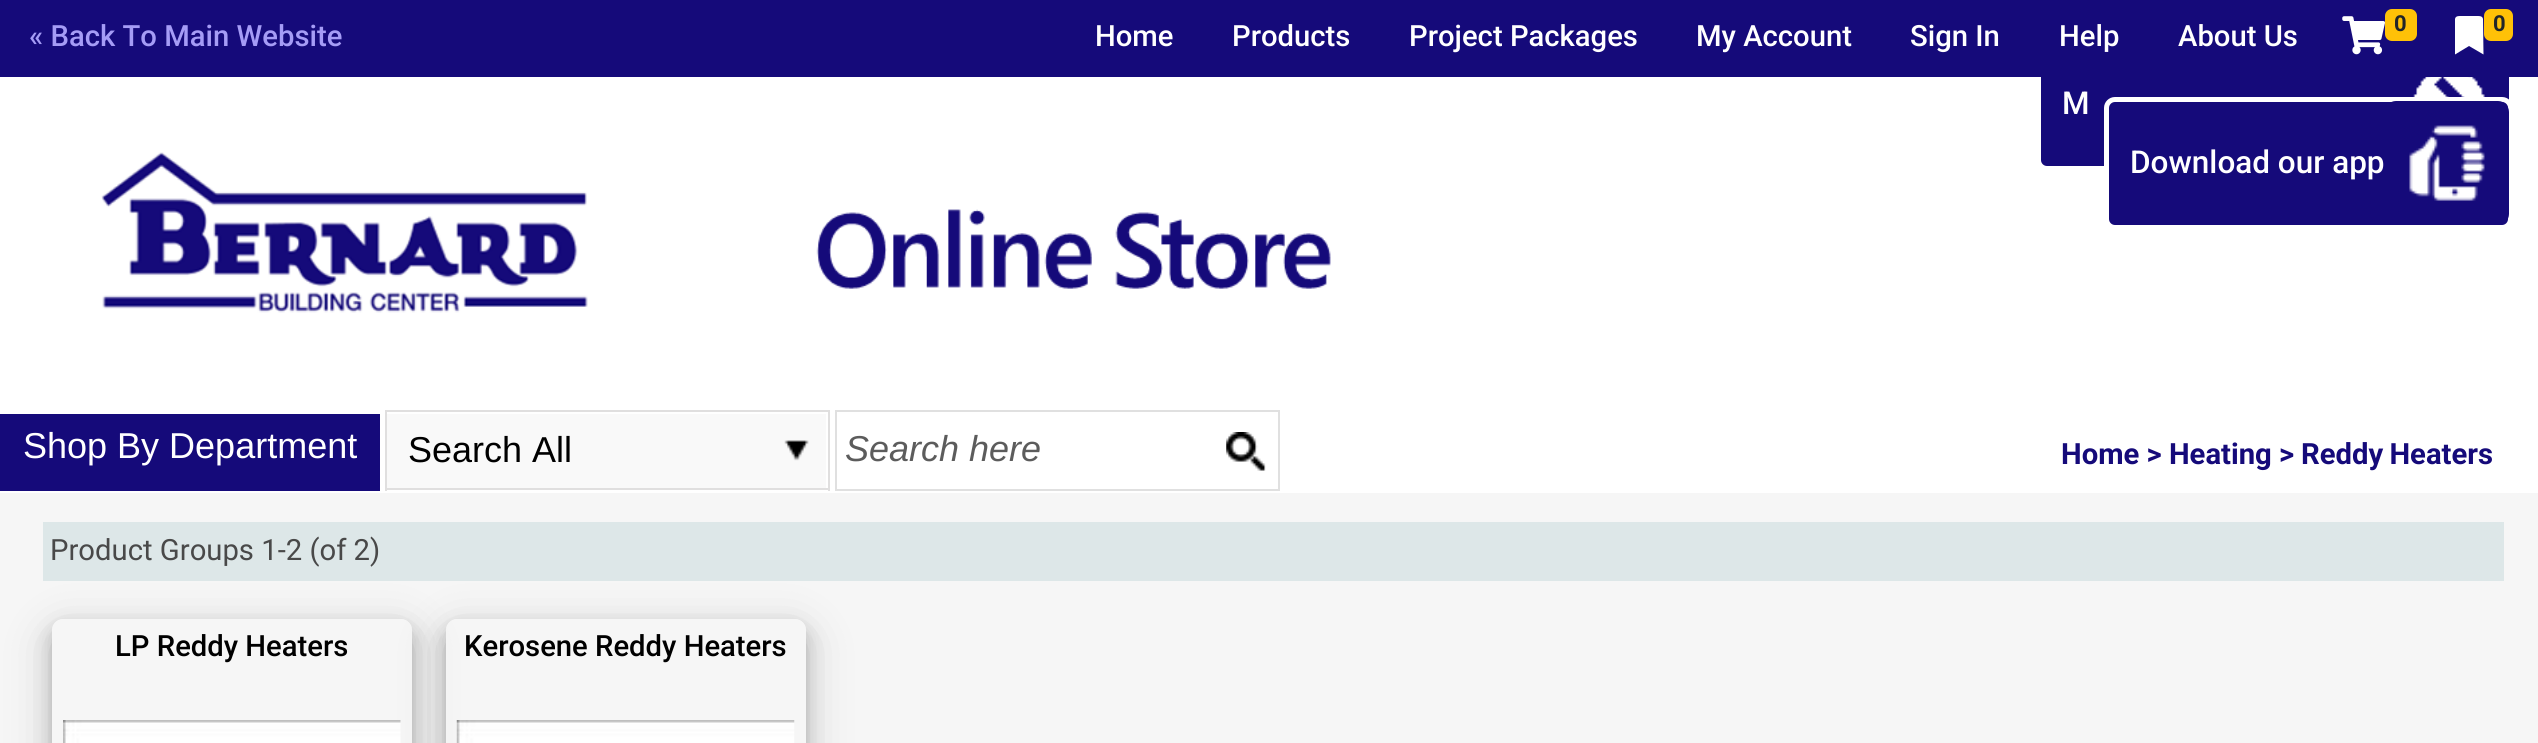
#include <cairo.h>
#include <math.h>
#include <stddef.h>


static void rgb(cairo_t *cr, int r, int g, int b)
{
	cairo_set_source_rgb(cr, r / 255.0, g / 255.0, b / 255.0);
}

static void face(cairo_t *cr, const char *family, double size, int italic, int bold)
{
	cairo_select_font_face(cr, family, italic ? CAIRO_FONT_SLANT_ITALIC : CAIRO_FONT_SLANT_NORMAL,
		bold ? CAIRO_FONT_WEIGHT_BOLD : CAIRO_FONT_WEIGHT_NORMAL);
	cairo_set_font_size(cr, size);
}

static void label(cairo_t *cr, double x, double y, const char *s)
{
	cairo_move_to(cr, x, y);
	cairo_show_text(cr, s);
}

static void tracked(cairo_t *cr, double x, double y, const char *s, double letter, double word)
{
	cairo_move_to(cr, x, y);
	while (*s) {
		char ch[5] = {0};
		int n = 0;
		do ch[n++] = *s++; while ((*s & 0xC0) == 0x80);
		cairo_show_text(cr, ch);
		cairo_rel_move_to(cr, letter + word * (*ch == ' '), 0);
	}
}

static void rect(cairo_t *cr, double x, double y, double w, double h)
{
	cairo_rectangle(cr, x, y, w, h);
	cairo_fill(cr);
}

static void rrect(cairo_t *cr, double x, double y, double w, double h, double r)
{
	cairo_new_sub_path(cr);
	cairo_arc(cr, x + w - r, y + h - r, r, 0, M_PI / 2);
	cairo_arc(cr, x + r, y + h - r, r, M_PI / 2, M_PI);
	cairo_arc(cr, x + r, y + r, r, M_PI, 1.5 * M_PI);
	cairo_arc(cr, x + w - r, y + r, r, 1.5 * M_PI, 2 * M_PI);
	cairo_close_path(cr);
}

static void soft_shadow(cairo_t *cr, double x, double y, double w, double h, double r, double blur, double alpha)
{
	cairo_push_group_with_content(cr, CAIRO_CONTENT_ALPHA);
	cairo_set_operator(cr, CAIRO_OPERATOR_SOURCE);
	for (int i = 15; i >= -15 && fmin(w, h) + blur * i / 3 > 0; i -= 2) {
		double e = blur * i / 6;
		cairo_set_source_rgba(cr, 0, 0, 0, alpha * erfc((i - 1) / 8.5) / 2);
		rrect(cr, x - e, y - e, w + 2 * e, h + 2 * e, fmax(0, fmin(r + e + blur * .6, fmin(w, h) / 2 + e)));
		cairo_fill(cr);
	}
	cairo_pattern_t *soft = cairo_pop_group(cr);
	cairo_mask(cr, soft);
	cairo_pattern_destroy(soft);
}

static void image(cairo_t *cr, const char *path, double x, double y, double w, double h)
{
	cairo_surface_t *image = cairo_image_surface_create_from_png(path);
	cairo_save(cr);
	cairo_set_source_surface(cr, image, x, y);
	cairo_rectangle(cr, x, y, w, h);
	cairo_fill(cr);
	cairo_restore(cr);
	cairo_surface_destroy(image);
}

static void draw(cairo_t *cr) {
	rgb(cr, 255, 255, 255);
	cairo_paint(cr);
	rgb(cr, 21, 10, 122);
	rrect(cr, 2038.5, 40.5, 472, 128, 8.5);
	cairo_fill_preserve(cr);
	rgb(cr, 255, 255, 255);
	cairo_set_line_width(cr, 5);
	cairo_stroke(cr);
	rgb(cr, 21, 10, 122);
	rect(cr, 0, 0, 2538, 77);
	face(cr, "Roboto Medium", 29.25, 0, 0);
	rgb(cr, 165, 156, 246);
	label(cr, 29, 46, "« Back To Main Website");
	rgb(cr, 255, 255, 255);
	label(cr, 1095, 46, "Home");
	label(cr, 1232, 46, "Products");
	label(cr, 1409, 46, "Project Packages");
	label(cr, 1696, 46, "My Account");
	label(cr, 1910, 46, "Sign In");
	label(cr, 2059, 46, "Help");
	label(cr, 2178, 46, "About Us");
	image(cr, "image0.png", 2342, 16, 43, 39);
	rgb(cr, 255, 193, 7);
	rrect(cr, 2385, 9, 32, 32, 7);
	cairo_fill(cr);
	face(cr, "Roboto", 22, 0, 1);
	rgb(cr, 33, 37, 41);
	label(cr, 2394, 31, "0");
	rgb(cr, 255, 255, 255);
	cairo_new_path(cr);
	cairo_move_to(cr, 2455, 54.5);
	cairo_line_to(cr, 2455, 19);
	cairo_curve_to(cr, 2455.5, 15.5, 2459.5, 16, 2462, 16);
	cairo_line_to(cr, 2476, 16);
	cairo_curve_to(cr, 2478.5, 16, 2482.5, 15.5, 2483, 19);
	cairo_line_to(cr, 2483.5, 54.5);
	cairo_line_to(cr, 2469, 46);
	cairo_close_path(cr);
	cairo_fill(cr);
	rgb(cr, 255, 193, 7);
	rrect(cr, 2484, 9, 29, 32, 7);
	cairo_fill(cr);
	rgb(cr, 33, 37, 41);
	label(cr, 2493, 31, "0");
	rgb(cr, 21, 10, 122);
	rect(cr, 2508, 77, 1, 23);
	image(cr, "image1.png", 2413, 77, 72, 20);
	face(cr, "Roboto Medium", 31.5, 0, 0);
	rgb(cr, 255, 255, 255);
	label(cr, 2062, 114, "M");
	rgb(cr, 21, 10, 122);
	rrect(cr, 2106.5, 99.5, 404, 128, 8.5);
	cairo_fill_preserve(cr);
	rgb(cr, 255, 255, 255);
	cairo_stroke(cr);
	label(cr, 2130, 173, "Download our app");
	rgb(cr, 21, 10, 122);
	rrect(cr, 2385, 101, 124, 124, 11);
	cairo_fill(cr);
	image(cr, "image2.png", 2409, 125, 76, 76);
	image(cr, "image3.png", 101, 152, 1230, 161);
	rect(cr, 0, 414, 380, 77);
	face(cr, "Liberation Sans", 36, 0, 0);
	rgb(cr, 255, 255, 255);
	label(cr, 23, 458, "Shop By Department");
	rgb(cr, 224, 223, 223);
	rect(cr, 385, 410, 445, 2);
	rect(cr, 828, 410, 2, 81);
	rect(cr, 385, 488, 445, 2);
	rgb(cr, 249, 249, 249);
	rect(cr, 387, 414, 439, 74);
	image(cr, "image4.png", 784, 440, 25, 21);
	rgb(cr, 224, 223, 223);
	rect(cr, 385, 410, 2, 81);
	rgb(cr, 0, 0, 0);
	label(cr, 408, 462, "Search All");
	cairo_rectangle(cr, 836, 411, 443, 79);
	rgb(cr, 224, 224, 224);
	cairo_set_line_width(cr, 2);
	cairo_stroke(cr);
	face(cr, "Liberation Sans", 36, 1, 0);
	rgb(cr, 92, 92, 92);
	label(cr, 845, 461, "Search here");
	image(cr, "image5.png", 1226, 432, 40, 39);
	face(cr, "Roboto", 29.25, 0, 1);
	rgb(cr, 21, 10, 122);
	label(cr, 2061, 464, "Home > Heating");
	label(cr, 2279, 464, ">");
	tracked(cr, 2301, 464, "Reddy Heaters", 0, -1);
	rgb(cr, 246, 246, 246);
	rect(cr, 0, 493, 2538, 250);
	rgb(cr, 221, 231, 232);
	rect(cr, 43, 522, 2461, 59);
	cairo_save(cr);
	cairo_set_fill_rule(cr, CAIRO_FILL_RULE_EVEN_ODD);
	cairo_new_path(cr);
	cairo_move_to(cr, 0, 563);
	cairo_line_to(cr, 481, 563);
	cairo_line_to(cr, 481, 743);
	cairo_line_to(cr, 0, 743);
	cairo_close_path(cr);
	cairo_move_to(cr, 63, 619);
	cairo_line_to(cr, 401, 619);
	cairo_curve_to(cr, 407, 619, 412, 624, 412, 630);
	cairo_line_to(cr, 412, 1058);
	cairo_curve_to(cr, 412, 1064, 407, 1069, 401, 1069);
	cairo_line_to(cr, 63, 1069);
	cairo_curve_to(cr, 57, 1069, 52, 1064, 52, 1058);
	cairo_line_to(cr, 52, 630);
	cairo_curve_to(cr, 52, 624, 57, 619, 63, 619);
	cairo_close_path(cr);
	cairo_clip(cr);
	rgb(cr, 0, 0, 0);
	soft_shadow(cr, 52, 632, 360, 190, 11, 22.5, 0.19);
	cairo_restore(cr);
	cairo_save(cr);
	cairo_set_fill_rule(cr, CAIRO_FILL_RULE_EVEN_ODD);
	cairo_new_path(cr);
	cairo_move_to(cr, 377, 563);
	cairo_line_to(cr, 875, 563);
	cairo_line_to(cr, 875, 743);
	cairo_line_to(cr, 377, 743);
	cairo_close_path(cr);
	cairo_move_to(cr, 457, 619);
	cairo_line_to(cr, 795, 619);
	cairo_curve_to(cr, 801, 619, 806, 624, 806, 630);
	cairo_line_to(cr, 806, 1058);
	cairo_curve_to(cr, 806, 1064, 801, 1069, 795, 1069);
	cairo_line_to(cr, 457, 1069);
	cairo_curve_to(cr, 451, 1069, 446, 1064, 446, 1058);
	cairo_line_to(cr, 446, 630);
	cairo_curve_to(cr, 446, 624, 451, 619, 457, 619);
	cairo_close_path(cr);
	cairo_clip(cr);
	rgb(cr, 0, 0, 0);
	soft_shadow(cr, 446, 632, 360, 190, 11, 22.5, 0.19);
	cairo_restore(cr);
	face(cr, "Roboto", 29.25, 0, 0);
	rgb(cr, 73, 73, 73);
	label(cr, 50, 560, "Product Groups 1-2 (of 2)");
	cairo_save(cr);
	cairo_set_fill_rule(cr, CAIRO_FILL_RULE_EVEN_ODD);
	cairo_new_path(cr);
	cairo_move_to(cr, 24, 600);
	cairo_line_to(cr, 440, 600);
	cairo_line_to(cr, 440, 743);
	cairo_line_to(cr, 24, 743);
	cairo_close_path(cr);
	cairo_move_to(cr, 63, 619);
	cairo_line_to(cr, 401, 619);
	cairo_curve_to(cr, 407, 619, 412, 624, 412, 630);
	cairo_line_to(cr, 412, 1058);
	cairo_curve_to(cr, 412, 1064, 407, 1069, 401, 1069);
	cairo_line_to(cr, 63, 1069);
	cairo_curve_to(cr, 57, 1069, 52, 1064, 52, 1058);
	cairo_line_to(cr, 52, 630);
	cairo_curve_to(cr, 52, 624, 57, 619, 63, 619);
	cairo_close_path(cr);
	cairo_clip(cr);
	rgb(cr, 0, 0, 0);
	soft_shadow(cr, 52, 628, 360, 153, 11, 9, 0.2);
	cairo_restore(cr);
	face(cr, "Roboto Medium", 29.25, 0, 0);
	rgb(cr, 0, 0, 0);
	label(cr, 115, 656, "LP Reddy Heaters");
	image(cr, "image6.png", 63, 720, 338, 23);
	cairo_save(cr);
	cairo_set_fill_rule(cr, CAIRO_FILL_RULE_EVEN_ODD);
	cairo_new_path(cr);
	cairo_move_to(cr, 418, 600);
	cairo_line_to(cr, 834, 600);
	cairo_line_to(cr, 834, 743);
	cairo_line_to(cr, 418, 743);
	cairo_close_path(cr);
	cairo_move_to(cr, 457, 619);
	cairo_line_to(cr, 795, 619);
	cairo_curve_to(cr, 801, 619, 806, 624, 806, 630);
	cairo_line_to(cr, 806, 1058);
	cairo_curve_to(cr, 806, 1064, 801, 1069, 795, 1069);
	cairo_line_to(cr, 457, 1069);
	cairo_curve_to(cr, 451, 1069, 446, 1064, 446, 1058);
	cairo_line_to(cr, 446, 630);
	cairo_curve_to(cr, 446, 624, 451, 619, 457, 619);
	cairo_close_path(cr);
	cairo_clip(cr);
	rgb(cr, 0, 0, 0);
	soft_shadow(cr, 446, 628, 360, 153, 11, 9, 0.2);
	cairo_restore(cr);
	label(cr, 464, 656, "Kerosene Reddy Heaters");
	image(cr, "image7.png", 456, 720, 339, 23);
}

int main(void) {
	cairo_surface_t *surface = cairo_image_surface_create(CAIRO_FORMAT_RGB24, 2538, 743);
	cairo_t *cr = cairo_create(surface);
	cairo_font_options_t *options = cairo_font_options_create();
	cairo_font_options_set_hint_metrics(options, CAIRO_HINT_METRICS_OFF);
	cairo_font_options_set_hint_style(options, CAIRO_HINT_STYLE_NONE);
	cairo_set_font_options(cr, options);
	cairo_set_miter_limit(cr, 4);
	draw(cr);
	cairo_surface_write_to_png(surface, "render.png");
	cairo_font_options_destroy(options);
	cairo_destroy(cr);
	cairo_surface_destroy(surface);
	return 0;
}
